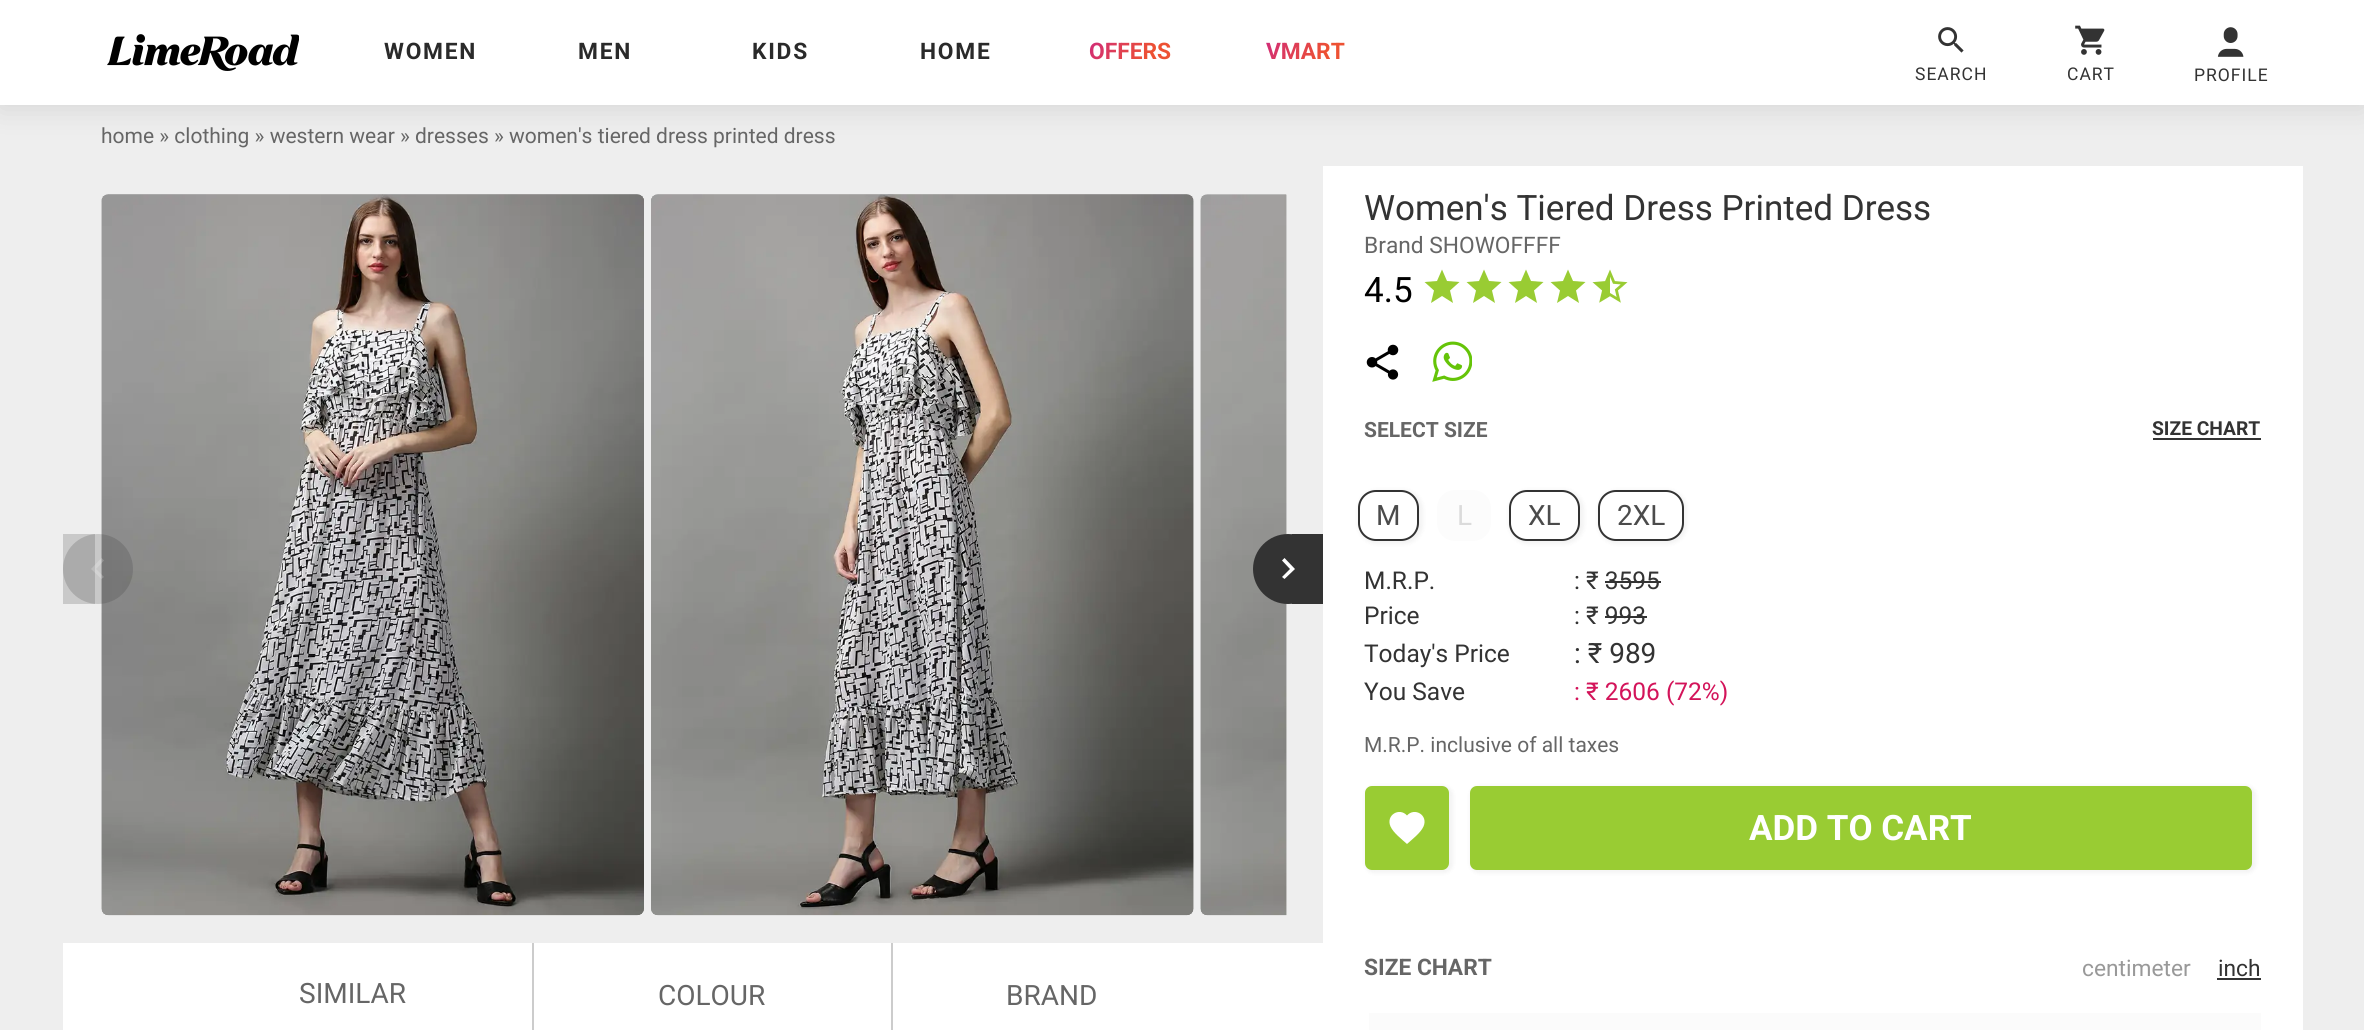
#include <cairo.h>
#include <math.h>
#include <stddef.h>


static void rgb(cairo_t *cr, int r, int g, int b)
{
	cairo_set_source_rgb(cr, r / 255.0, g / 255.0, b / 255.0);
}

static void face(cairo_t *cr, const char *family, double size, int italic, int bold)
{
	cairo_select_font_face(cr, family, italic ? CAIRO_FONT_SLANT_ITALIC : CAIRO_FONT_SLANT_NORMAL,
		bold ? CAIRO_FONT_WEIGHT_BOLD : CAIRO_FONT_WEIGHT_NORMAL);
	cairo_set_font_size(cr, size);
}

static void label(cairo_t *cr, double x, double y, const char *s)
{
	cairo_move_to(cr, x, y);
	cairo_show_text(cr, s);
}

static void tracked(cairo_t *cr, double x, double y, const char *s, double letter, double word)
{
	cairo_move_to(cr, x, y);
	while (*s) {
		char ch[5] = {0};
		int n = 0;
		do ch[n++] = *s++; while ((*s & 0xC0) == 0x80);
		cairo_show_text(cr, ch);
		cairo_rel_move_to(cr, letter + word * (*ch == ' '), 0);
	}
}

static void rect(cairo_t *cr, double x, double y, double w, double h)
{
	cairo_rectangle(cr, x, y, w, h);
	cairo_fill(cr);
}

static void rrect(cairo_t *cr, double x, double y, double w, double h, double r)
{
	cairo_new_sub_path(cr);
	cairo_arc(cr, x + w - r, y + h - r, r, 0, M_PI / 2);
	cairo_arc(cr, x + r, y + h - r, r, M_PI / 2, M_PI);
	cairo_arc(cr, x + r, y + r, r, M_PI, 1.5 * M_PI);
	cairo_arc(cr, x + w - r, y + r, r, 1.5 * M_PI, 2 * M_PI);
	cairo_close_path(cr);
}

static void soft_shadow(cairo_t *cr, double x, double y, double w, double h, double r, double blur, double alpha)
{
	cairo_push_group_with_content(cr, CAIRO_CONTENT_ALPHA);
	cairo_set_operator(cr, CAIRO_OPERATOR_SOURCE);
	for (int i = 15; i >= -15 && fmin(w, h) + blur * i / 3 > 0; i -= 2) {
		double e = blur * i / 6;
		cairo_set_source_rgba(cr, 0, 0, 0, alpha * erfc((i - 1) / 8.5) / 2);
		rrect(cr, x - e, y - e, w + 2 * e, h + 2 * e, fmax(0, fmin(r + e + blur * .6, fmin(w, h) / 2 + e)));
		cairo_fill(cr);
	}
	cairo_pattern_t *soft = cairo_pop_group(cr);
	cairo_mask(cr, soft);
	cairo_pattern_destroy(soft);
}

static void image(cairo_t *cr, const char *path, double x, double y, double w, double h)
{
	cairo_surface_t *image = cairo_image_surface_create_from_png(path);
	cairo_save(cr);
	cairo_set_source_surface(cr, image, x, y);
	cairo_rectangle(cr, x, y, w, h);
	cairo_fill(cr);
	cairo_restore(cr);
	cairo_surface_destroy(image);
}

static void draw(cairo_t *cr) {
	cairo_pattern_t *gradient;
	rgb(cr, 238, 238, 238);
	cairo_paint(cr);
	rgb(cr, 85, 85, 85);
	soft_shadow(cr, 0, 4, 2364, 105, 0, 14, 0.16);
	rgb(cr, 255, 255, 255);
	rect(cr, 0, 0, 2364, 105);
	image(cr, "image0.png", 107, 34, 192, 37);
	face(cr, "Roboto", 22.75, 0, 1);
	rgb(cr, 42, 42, 42);
	tracked(cr, 384, 59, "WOMEN", 1.75, 0);
	tracked(cr, 578, 59, "MEN", 1.75, 0);
	tracked(cr, 752, 59, "KIDS", 1.75, 0);
	tracked(cr, 920, 59, "HOME", 1.75, 0);
	gradient = cairo_pattern_create_linear(1092, 27, 1165, 74);
	cairo_pattern_add_color_stop_rgba(gradient, 0, 0.808, 0.161, 0.494, 1);
	cairo_pattern_add_color_stop_rgba(gradient, 0.73, 0.929, 0.318, 0.2, 1);
	cairo_set_source(cr, gradient);
	cairo_pattern_destroy(gradient);
	label(cr, 1089, 59, "OFFERS");
	gradient = cairo_pattern_create_linear(1269, 27, 1339, 73);
	cairo_pattern_add_color_stop_rgba(gradient, 0, 0.808, 0.161, 0.494, 1);
	cairo_pattern_add_color_stop_rgba(gradient, 0.73, 0.929, 0.318, 0.2, 1);
	cairo_set_source(cr, gradient);
	cairo_pattern_destroy(gradient);
	label(cr, 1266, 59, "VMART");
	image(cr, "image1.png", 1938, 27, 26, 26);
	face(cr, "Roboto", 17.5, 0, 0);
	rgb(cr, 51, 51, 51);
	tracked(cr, 1915, 80, "SEARCH", 1, 0);
	image(cr, "image2.png", 2075, 25, 30, 30);
	tracked(cr, 2067, 80, "CART", 1, 0);
	image(cr, "image3.png", 2217, 27, 27, 30);
	tracked(cr, 2194, 81, "PROFILE", 1, 0);
	face(cr, "Roboto", 21, 0, 0);
	rgb(cr, 102, 102, 102);
	label(cr, 101, 143, "home » clothing » western wear » dresses » women's tiered dress printed dress");
	rgb(cr, 255, 255, 255);
	rect(cr, 1323, 166, 980, 864);
	face(cr, "Roboto", 35, 0, 0);
	rgb(cr, 51, 51, 51);
	label(cr, 1364, 220, "Women's Tiered Dress Printed Dress");
	face(cr, "Roboto", 22.75, 0, 0);
	rgb(cr, 102, 102, 102);
	label(cr, 1364, 253, "Brand SHOWOFFFF");
	face(cr, "Roboto", 35, 0, 0);
	rgb(cr, 0, 0, 0);
	label(cr, 1364, 302, "4.5");
	rgb(cr, 153, 204, 51);
	cairo_new_path(cr);
	cairo_move_to(cr, 1442, 296);
	cairo_line_to(cr, 1453, 303);
	cairo_line_to(cr, 1450, 290.5);
	cairo_line_to(cr, 1459.5, 282);
	cairo_line_to(cr, 1447, 281);
	cairo_line_to(cr, 1442, 269.5);
	cairo_line_to(cr, 1437, 281);
	cairo_line_to(cr, 1424.5, 282);
	cairo_line_to(cr, 1434, 290.5);
	cairo_line_to(cr, 1431, 303);
	cairo_close_path(cr);
	cairo_fill(cr);
	cairo_new_path(cr);
	cairo_move_to(cr, 1484, 296);
	cairo_line_to(cr, 1495, 303);
	cairo_line_to(cr, 1492, 290.5);
	cairo_line_to(cr, 1501.5, 282);
	cairo_line_to(cr, 1489, 281);
	cairo_line_to(cr, 1484, 269.5);
	cairo_line_to(cr, 1479, 281);
	cairo_line_to(cr, 1466.5, 282);
	cairo_line_to(cr, 1476, 290.5);
	cairo_line_to(cr, 1473, 303);
	cairo_close_path(cr);
	cairo_fill(cr);
	cairo_new_path(cr);
	cairo_move_to(cr, 1526, 296);
	cairo_line_to(cr, 1537, 303);
	cairo_line_to(cr, 1534, 290.5);
	cairo_line_to(cr, 1543.5, 282);
	cairo_line_to(cr, 1531, 281);
	cairo_line_to(cr, 1526, 269.5);
	cairo_line_to(cr, 1521, 281);
	cairo_line_to(cr, 1508.5, 282);
	cairo_line_to(cr, 1518, 290.5);
	cairo_line_to(cr, 1515, 303);
	cairo_close_path(cr);
	cairo_fill(cr);
	cairo_new_path(cr);
	cairo_move_to(cr, 1568, 296);
	cairo_line_to(cr, 1579, 303);
	cairo_line_to(cr, 1576, 290.5);
	cairo_line_to(cr, 1585.5, 282);
	cairo_line_to(cr, 1573, 281);
	cairo_line_to(cr, 1568, 269.5);
	cairo_line_to(cr, 1563, 281);
	cairo_line_to(cr, 1550.5, 282);
	cairo_line_to(cr, 1560, 290.5);
	cairo_line_to(cr, 1557, 303);
	cairo_close_path(cr);
	cairo_fill(cr);
	image(cr, "image4.png", 1592, 269, 36, 34);
	image(cr, "image5.png", 1366, 344, 33, 36);
	image(cr, "image6.png", 1432, 341, 40, 41);
	face(cr, "Roboto", 21, 0, 1);
	rgb(cr, 102, 102, 102);
	label(cr, 1364, 437, "SELECT SIZE");
	face(cr, "Roboto", 19.25, 0, 1);
	rgb(cr, 51, 51, 51);
	label(cr, 2152, 435, "SIZE CHART");
	rect(cr, 2153, 438, 108, 2);
	cairo_save(cr);
	cairo_set_fill_rule(cr, CAIRO_FILL_RULE_EVEN_ODD);
	cairo_new_path(cr);
	cairo_move_to(cr, 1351, 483);
	cairo_line_to(cr, 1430, 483);
	cairo_line_to(cr, 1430, 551);
	cairo_line_to(cr, 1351, 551);
	cairo_close_path(cr);
	cairo_move_to(cr, 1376, 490);
	cairo_line_to(cr, 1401, 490);
	cairo_curve_to(cr, 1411, 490, 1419, 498, 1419, 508);
	cairo_line_to(cr, 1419, 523);
	cairo_curve_to(cr, 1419, 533, 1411, 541, 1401, 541);
	cairo_line_to(cr, 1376, 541);
	cairo_curve_to(cr, 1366, 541, 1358, 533, 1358, 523);
	cairo_line_to(cr, 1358, 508);
	cairo_curve_to(cr, 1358, 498, 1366, 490, 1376, 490);
	cairo_close_path(cr);
	cairo_clip(cr);
	rgb(cr, 0, 0, 0);
	soft_shadow(cr, 1358, 490, 65, 54, 19, 2, 0.05);
	cairo_restore(cr);
	rrect(cr, 1359, 491, 59, 49, 17);
	cairo_stroke(cr);
	face(cr, "Roboto", 28, 0, 0);
	rgb(cr, 75, 75, 75);
	label(cr, 1376, 525, "M");
	rgb(cr, 252, 252, 252);
	rrect(cr, 1437, 490, 54, 51, 18);
	cairo_fill(cr);
	rgb(cr, 219, 219, 219);
	label(cr, 1457, 525, "L");
	cairo_save(cr);
	cairo_set_fill_rule(cr, CAIRO_FILL_RULE_EVEN_ODD);
	cairo_new_path(cr);
	cairo_move_to(cr, 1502, 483);
	cairo_line_to(cr, 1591, 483);
	cairo_line_to(cr, 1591, 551);
	cairo_line_to(cr, 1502, 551);
	cairo_close_path(cr);
	cairo_move_to(cr, 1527, 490);
	cairo_line_to(cr, 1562, 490);
	cairo_curve_to(cr, 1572, 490, 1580, 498, 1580, 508);
	cairo_line_to(cr, 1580, 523);
	cairo_curve_to(cr, 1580, 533, 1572, 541, 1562, 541);
	cairo_line_to(cr, 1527, 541);
	cairo_curve_to(cr, 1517, 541, 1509, 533, 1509, 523);
	cairo_line_to(cr, 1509, 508);
	cairo_curve_to(cr, 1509, 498, 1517, 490, 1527, 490);
	cairo_close_path(cr);
	cairo_clip(cr);
	rgb(cr, 0, 0, 0);
	soft_shadow(cr, 1509, 490, 75, 54, 19, 2, 0.05);
	cairo_restore(cr);
	rrect(cr, 1510, 491, 69, 49, 17);
	rgb(cr, 51, 51, 51);
	cairo_stroke(cr);
	rgb(cr, 75, 75, 75);
	label(cr, 1528, 525, "XL");
	cairo_save(cr);
	cairo_set_fill_rule(cr, CAIRO_FILL_RULE_EVEN_ODD);
	cairo_new_path(cr);
	cairo_move_to(cr, 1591, 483);
	cairo_line_to(cr, 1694, 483);
	cairo_line_to(cr, 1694, 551);
	cairo_line_to(cr, 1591, 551);
	cairo_close_path(cr);
	cairo_move_to(cr, 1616, 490);
	cairo_line_to(cr, 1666, 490);
	cairo_curve_to(cr, 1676, 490, 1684, 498, 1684, 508);
	cairo_line_to(cr, 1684, 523);
	cairo_curve_to(cr, 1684, 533, 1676, 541, 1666, 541);
	cairo_line_to(cr, 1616, 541);
	cairo_curve_to(cr, 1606, 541, 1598, 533, 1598, 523);
	cairo_line_to(cr, 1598, 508);
	cairo_curve_to(cr, 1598, 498, 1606, 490, 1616, 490);
	cairo_close_path(cr);
	cairo_clip(cr);
	rgb(cr, 0, 0, 0);
	soft_shadow(cr, 1598, 490, 89, 54, 19, 2, 0.05);
	cairo_restore(cr);
	rrect(cr, 1599, 491, 84, 49, 17);
	rgb(cr, 51, 51, 51);
	cairo_stroke(cr);
	rgb(cr, 75, 75, 75);
	label(cr, 1617, 525, "2XL");
	face(cr, "Roboto", 24.5, 0, 0);
	rgb(cr, 51, 51, 51);
	label(cr, 1364, 589, "M.R.P.");
	label(cr, 1574, 589, ": ₹ 3595");
	rect(cr, 1605, 581, 56, 2);
	label(cr, 1364, 624, "Price");
	label(cr, 1574, 624, ": ₹ 993");
	rect(cr, 1605, 616, 42, 2);
	label(cr, 1364, 662, "Today's Price");
	face(cr, "Roboto", 28, 0, 0);
	label(cr, 1574, 663, ": ₹ 989");
	face(cr, "Roboto", 24.5, 0, 0);
	label(cr, 1364, 700, "You Save");
	rgb(cr, 211, 20, 90);
	label(cr, 1574, 700, ": ₹ 2606 (72%)");
	face(cr, "Roboto", 21, 0, 0);
	rgb(cr, 102, 102, 102);
	label(cr, 1364, 752, "M.R.P. inclusive of all taxes");
	rgb(cr, 0, 0, 0);
	soft_shadow(cr, 1365, 786, 88, 87, 9, 2, 0.05);
	rgb(cr, 153, 204, 51);
	rrect(cr, 1365, 786, 84, 84, 7);
	cairo_fill(cr);
	rgb(cr, 255, 255, 255);
	cairo_new_path(cr);
	cairo_move_to(cr, 1407, 844);
	cairo_curve_to(cr, 1401.5, 839, 1393.5, 833, 1390.5, 826.5);
	cairo_curve_to(cr, 1385.5, 815, 1399.5, 807, 1407, 815.5);
	cairo_curve_to(cr, 1414.5, 807, 1428.5, 815, 1423.5, 826.5);
	cairo_curve_to(cr, 1420.5, 833, 1412.5, 839, 1407, 844);
	cairo_close_path(cr);
	cairo_fill(cr);
	rgb(cr, 0, 0, 0);
	soft_shadow(cr, 1470, 786, 786, 87, 9, 2, 0.05);
	rgb(cr, 153, 204, 51);
	rrect(cr, 1470, 786, 782, 84, 7);
	cairo_fill(cr);
	face(cr, "Roboto", 35, 0, 1);
	rgb(cr, 255, 255, 255);
	label(cr, 1749, 840, "ADD TO CART");
	face(cr, "Roboto", 22.75, 0, 1);
	rgb(cr, 102, 102, 102);
	label(cr, 1364, 975, "SIZE CHART");
	face(cr, "Roboto", 22.75, 0, 0);
	rgb(cr, 153, 153, 153);
	label(cr, 2082, 976, "centimeter");
	rgb(cr, 51, 51, 51);
	label(cr, 2218, 976, "inch");
	rect(cr, 2217, 978, 44, 2);
	rgb(cr, 251, 251, 251);
	rect(cr, 1369, 1013, 892, 17);
	rgb(cr, 201, 201, 201);
	rect(cr, 63, 534, 32, 70);
	image(cr, "image7.png", 101, 194, 543, 722);
	image(cr, "image8.png", 101, 194, 543, 722);
	cairo_set_source_rgba(cr, 0.2, 0.2, 0.2, 0.2);
	cairo_arc(cr, 98, 569, 35, 0, 2 * M_PI);
	cairo_fill(cr);
	cairo_set_source_rgba(cr, 1, 1, 1, 0.2);
	cairo_new_path(cr);
	cairo_move_to(cr, 104, 560.5);
	cairo_line_to(cr, 101.5, 558);
	cairo_line_to(cr, 91, 569);
	cairo_line_to(cr, 101.5, 579);
	cairo_line_to(cr, 104, 577);
	cairo_line_to(cr, 96, 569);
	cairo_close_path(cr);
	cairo_fill(cr);
	image(cr, "image9.png", 651, 194, 543, 722);
	image(cr, "image10.png", 651, 194, 543, 722);
	image(cr, "image11.png", 1200, 194, 87, 722);
	image(cr, "image12.png", 1200, 194, 87, 722);
	rgb(cr, 51, 51, 51);
	rect(cr, 1292, 534, 31, 70);
	cairo_arc(cr, 1288, 569, 35, 0, 2 * M_PI);
	cairo_fill(cr);
	rgb(cr, 255, 255, 255);
	cairo_new_path(cr);
	cairo_move_to(cr, 1284.5, 558);
	cairo_line_to(cr, 1282, 560.5);
	cairo_line_to(cr, 1290, 569);
	cairo_line_to(cr, 1282, 577);
	cairo_line_to(cr, 1284.5, 579);
	cairo_line_to(cr, 1295, 569);
	cairo_close_path(cr);
	cairo_fill(cr);
	rect(cr, 63, 943, 1260, 87);
	rgb(cr, 204, 204, 204);
	cairo_new_path(cr);
	cairo_move_to(cr, 534, 943);
	cairo_line_to(cr, 534, 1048);
	cairo_line_to(cr, 532, 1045);
	cairo_line_to(cr, 532, 943);
	cairo_close_path(cr);
	cairo_fill(cr);
	face(cr, "Roboto", 28, 0, 0);
	rgb(cr, 102, 102, 102);
	label(cr, 299, 1003, "SIMILAR");
	rgb(cr, 204, 204, 204);
	rect(cr, 891, 943, 2, 87);
	rgb(cr, 102, 102, 102);
	label(cr, 658, 1005, "COLOUR");
	label(cr, 1006, 1005, "BRAND");
}

int main(void) {
	cairo_surface_t *surface = cairo_image_surface_create(CAIRO_FORMAT_RGB24, 2364, 1030);
	cairo_t *cr = cairo_create(surface);
	cairo_font_options_t *options = cairo_font_options_create();
	cairo_font_options_set_hint_metrics(options, CAIRO_HINT_METRICS_OFF);
	cairo_font_options_set_hint_style(options, CAIRO_HINT_STYLE_NONE);
	cairo_set_font_options(cr, options);
	cairo_set_miter_limit(cr, 4);
	draw(cr);
	cairo_surface_write_to_png(surface, "render.png");
	cairo_font_options_destroy(options);
	cairo_destroy(cr);
	cairo_surface_destroy(surface);
	return 0;
}
